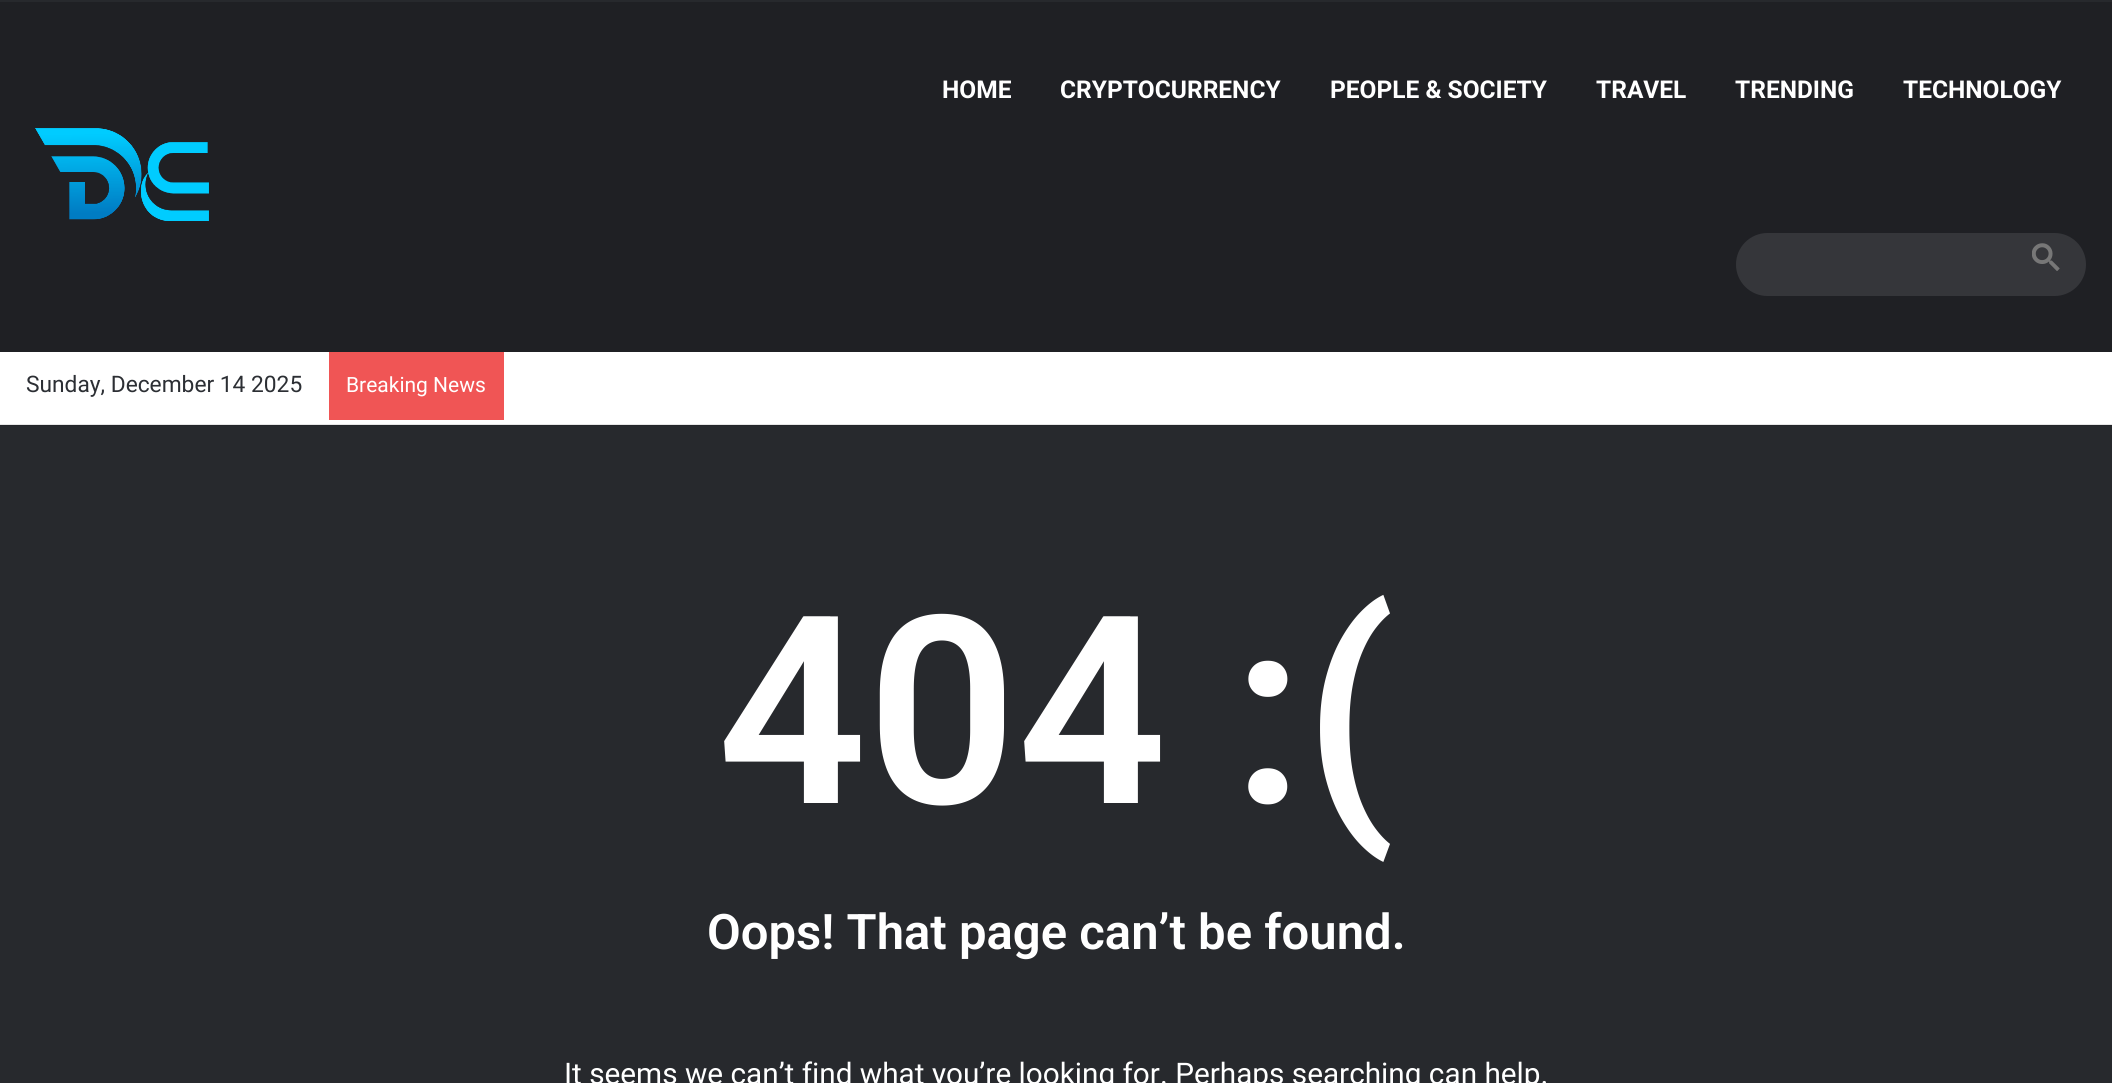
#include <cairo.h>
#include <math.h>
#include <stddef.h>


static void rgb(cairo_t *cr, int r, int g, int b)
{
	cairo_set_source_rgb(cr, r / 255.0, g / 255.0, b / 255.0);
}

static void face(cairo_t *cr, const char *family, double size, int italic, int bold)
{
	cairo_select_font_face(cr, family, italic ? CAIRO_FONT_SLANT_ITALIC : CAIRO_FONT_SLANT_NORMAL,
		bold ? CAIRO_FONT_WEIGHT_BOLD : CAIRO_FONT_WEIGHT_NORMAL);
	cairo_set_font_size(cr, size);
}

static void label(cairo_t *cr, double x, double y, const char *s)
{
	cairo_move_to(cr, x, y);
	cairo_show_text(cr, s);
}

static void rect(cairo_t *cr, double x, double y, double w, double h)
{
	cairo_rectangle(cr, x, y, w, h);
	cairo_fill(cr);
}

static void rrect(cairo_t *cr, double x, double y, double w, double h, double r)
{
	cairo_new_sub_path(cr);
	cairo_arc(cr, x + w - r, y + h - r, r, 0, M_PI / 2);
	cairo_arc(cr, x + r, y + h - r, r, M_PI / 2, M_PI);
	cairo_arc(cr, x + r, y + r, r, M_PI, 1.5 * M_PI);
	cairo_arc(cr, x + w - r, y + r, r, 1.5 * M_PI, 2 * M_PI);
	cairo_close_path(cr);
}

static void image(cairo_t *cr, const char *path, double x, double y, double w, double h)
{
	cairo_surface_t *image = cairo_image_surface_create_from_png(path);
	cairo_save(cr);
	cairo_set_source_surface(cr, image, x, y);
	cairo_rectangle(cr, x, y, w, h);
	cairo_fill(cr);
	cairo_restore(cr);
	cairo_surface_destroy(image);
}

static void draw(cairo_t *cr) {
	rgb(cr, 39, 41, 45);
	cairo_paint(cr);
	rgb(cr, 31, 32, 36);
	rect(cr, 0, 2, 2112, 350);
	face(cr, "Roboto", 24.5, 0, 1);
	rgb(cr, 255, 255, 255);
	label(cr, 942, 98, "HOME");
	label(cr, 1060, 98, "CRYPTOCURRENCY");
	label(cr, 1330, 98, "PEOPLE & SOCIETY");
	label(cr, 1596, 98, "TRAVEL");
	label(cr, 1735, 98, "TRENDING");
	label(cr, 1903, 98, "TECHNOLOGY");
	rgb(cr, 53, 54, 58);
	rrect(cr, 1736, 233, 350, 63, 31.5);
	cairo_fill(cr);
	image(cr, "image0.png", 2032, 243, 28, 28);
	image(cr, "image1.png", 35, 128, 174, 93);
	rgb(cr, 255, 255, 255);
	rect(cr, 0, 352, 2112, 73);
	cairo_set_source_rgba(cr, 0, 0, 0, 0.1);
	rect(cr, 0, 424, 2112, 2);
	face(cr, "Roboto", 22.75, 0, 0);
	rgb(cr, 44, 47, 52);
	label(cr, 26, 392, "Sunday, December 14 2025");
	rgb(cr, 240, 85, 85);
	rect(cr, 329, 352, 175, 68);
	face(cr, "Roboto", 21, 0, 0);
	rgb(cr, 255, 255, 255);
	label(cr, 346, 392, "Breaking News");
	face(cr, "Roboto SemiBold", 262.5, 0, 0);
	label(cr, 717, 803, "404 :(");
	face(cr, "Roboto SemiBold", 49, 0, 0);
	label(cr, 707, 949, "Oops! That page can’t be found.");
	face(cr, "Roboto", 29.75, 0, 0);
	label(cr, 564, 1084, "It seems we can’t find what you’re looking for. Perhaps searching can help.");
}

int main(void) {
	cairo_surface_t *surface = cairo_image_surface_create(CAIRO_FORMAT_RGB24, 2112, 1083);
	cairo_t *cr = cairo_create(surface);
	cairo_font_options_t *options = cairo_font_options_create();
	cairo_font_options_set_hint_metrics(options, CAIRO_HINT_METRICS_OFF);
	cairo_font_options_set_hint_style(options, CAIRO_HINT_STYLE_NONE);
	cairo_set_font_options(cr, options);
	cairo_set_miter_limit(cr, 4);
	draw(cr);
	cairo_surface_write_to_png(surface, "render.png");
	cairo_font_options_destroy(options);
	cairo_destroy(cr);
	cairo_surface_destroy(surface);
	return 0;
}
